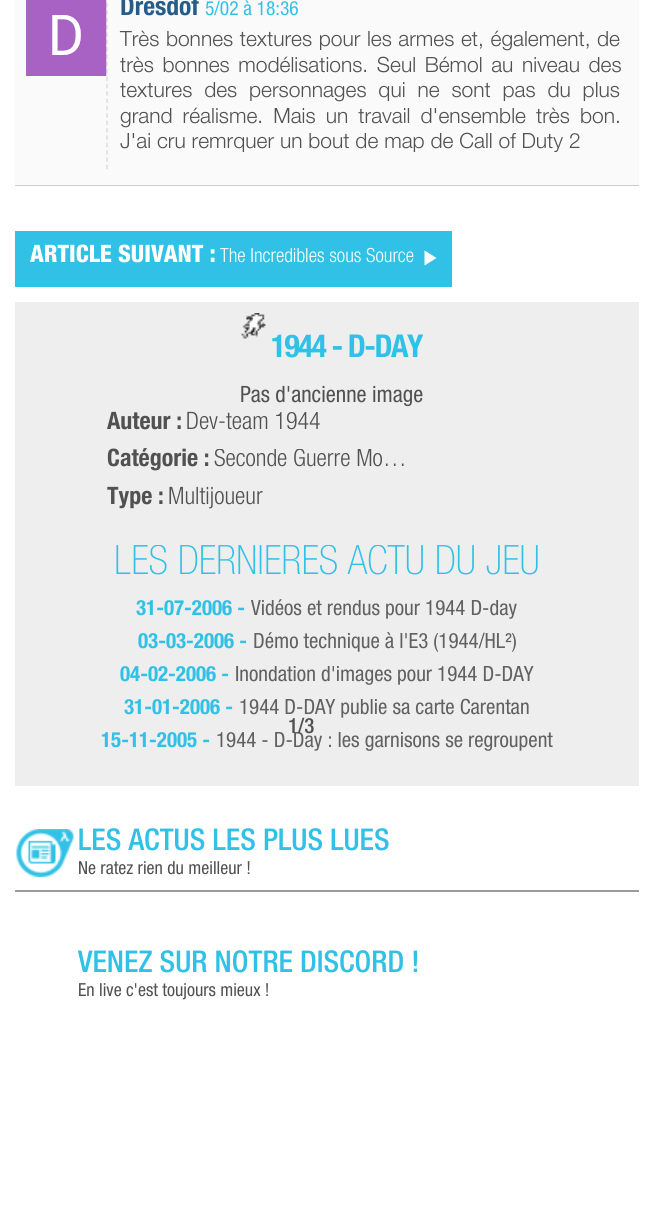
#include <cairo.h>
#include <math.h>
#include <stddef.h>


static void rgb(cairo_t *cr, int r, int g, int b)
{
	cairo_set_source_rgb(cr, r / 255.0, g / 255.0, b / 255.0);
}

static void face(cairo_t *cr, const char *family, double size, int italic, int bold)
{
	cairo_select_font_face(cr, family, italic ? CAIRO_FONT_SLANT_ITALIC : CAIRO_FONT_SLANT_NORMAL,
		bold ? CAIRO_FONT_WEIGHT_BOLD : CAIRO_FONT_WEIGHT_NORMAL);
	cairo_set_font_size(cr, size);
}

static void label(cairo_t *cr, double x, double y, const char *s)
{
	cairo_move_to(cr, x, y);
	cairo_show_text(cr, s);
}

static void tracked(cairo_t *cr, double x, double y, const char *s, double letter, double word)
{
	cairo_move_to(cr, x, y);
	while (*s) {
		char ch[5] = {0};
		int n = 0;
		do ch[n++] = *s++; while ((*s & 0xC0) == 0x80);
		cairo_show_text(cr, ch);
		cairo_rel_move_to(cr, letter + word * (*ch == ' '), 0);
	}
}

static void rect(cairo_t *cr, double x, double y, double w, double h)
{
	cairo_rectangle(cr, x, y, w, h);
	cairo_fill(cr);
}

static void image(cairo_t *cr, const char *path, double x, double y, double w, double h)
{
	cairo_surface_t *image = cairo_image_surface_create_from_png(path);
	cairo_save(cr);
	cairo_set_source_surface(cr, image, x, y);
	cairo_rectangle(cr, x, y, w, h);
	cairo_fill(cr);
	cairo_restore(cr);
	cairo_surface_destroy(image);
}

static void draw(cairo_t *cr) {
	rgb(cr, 255, 255, 255);
	cairo_paint(cr);
	rgb(cr, 250, 250, 250);
	rect(cr, 15, 0, 624, 185);
	rgb(cr, 204, 204, 204);
	rect(cr, 15, 185, 624, 1);
	cairo_new_path(cr);
	cairo_move_to(cr, 107, -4.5);
	cairo_line_to(cr, 107, 169.5);
	rgb(cr, 221, 221, 221);
	cairo_set_line_width(cr, 1.5);
	cairo_set_dash(cr, (double[]){4.5, 2.86}, 2, 0);
	cairo_stroke(cr);
	image(cr, "image0.png", 26, 0, 81, 76);
	face(cr, "Helvetica Neue", 25.5, 0, 1);
	rgb(cr, 39, 92, 136);
	label(cr, 120, 15, "Dresdof");
	face(cr, "Helvetica Neue", 19.5, 0, 0);
	rgb(cr, 49, 193, 230);
	label(cr, 205, 15, "5/02 à 18:36");
	face(cr, "Helvetica Neue Light", 21, 0, 0);
	rgb(cr, 81, 81, 81);
	tracked(cr, 120, 46, "Très bonnes textures pour les armes et, également, de", 0, 0.75);
	tracked(cr, 120, 72, "très bonnes modélisations. Seul Bémol au niveau des", 0, 2.75);
	tracked(cr, 120, 97, "textures des personnages qui ne sont pas du plus", 0, 6);
	tracked(cr, 120, 123, "grand réalisme. Mais un travail d'ensemble très bon.", 0, 4.25);
	label(cr, 120, 148, "J'ai cru remrquer un bout de map de Call of Duty 2");
	rgb(cr, 49, 193, 230);
	rect(cr, 15, 231, 437, 56);
	face(cr, "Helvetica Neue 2", 24, 0, 1);
	rgb(cr, 255, 255, 255);
	label(cr, 30, 262, "ARTICLE SUIVANT :");
	face(cr, "Helvetica Neue 2 Light", 19.5, 0, 0);
	label(cr, 220, 262, "The Incredibles sous Source");
	cairo_new_path(cr);
	cairo_move_to(cr, 424.5, 265.5);
	cairo_line_to(cr, 424.5, 250.5);
	cairo_line_to(cr, 436.5, 258);
	cairo_close_path(cr);
	cairo_fill(cr);
	rgb(cr, 238, 238, 238);
	rect(cr, 15, 302, 624, 484);
	image(cr, "image1.png", 241, 313, 25, 26);
	face(cr, "Helvetica Neue", 31.5, 0, 1);
	rgb(cr, 49, 193, 230);
	tracked(cr, 271, 357, "1944 - D-DAY", -1.5, 0);
	face(cr, "Helvetica Neue", 22.5, 0, 0);
	rgb(cr, 81, 81, 81);
	label(cr, 240, 402, "Pas d'ancienne image");
	face(cr, "Helvetica Neue", 24, 0, 1);
	label(cr, 107, 429, "Auteur :");
	face(cr, "Helvetica Neue 2 Light", 24, 0, 0);
	label(cr, 186, 429, "Dev-team 1944");
	face(cr, "Helvetica Neue", 24, 0, 1);
	label(cr, 107, 466, "Catégorie :");
	cairo_save(cr);
	cairo_rectangle(cr, 213, 449, 344, 27);
	cairo_clip(cr);
	face(cr, "Helvetica Neue 2 Light", 24, 0, 0);
	label(cr, 214, 466, "Seconde Guerre Mo…");
	cairo_restore(cr);
	label(cr, 107, 504, "Type :");
	face(cr, "Helvetica Neue 2 Light", 24, 0, 0);
	label(cr, 168, 504, "Multijoueur");
	cairo_save(cr);
	cairo_rectangle(cr, 29, 545, 597, 219);
	cairo_clip(cr);
	face(cr, "Helvetica Neue ExtraLight", 40.5, 0, 0);
	rgb(cr, 49, 193, 230);
	label(cr, 114, 574, "LES DERNIÈRES ACTU DU JEU");
	cairo_restore(cr);
	face(cr, "Helvetica Neue", 21, 0, 1);
	rgb(cr, 49, 193, 230);
	label(cr, 136, 615, "31-07-2006 -");
	face(cr, "Helvetica Neue", 21, 0, 0);
	rgb(cr, 97, 97, 97);
	label(cr, 251, 615, "Vidéos et rendus pour 1944 D-day");
	face(cr, "Helvetica Neue", 21, 0, 1);
	rgb(cr, 49, 193, 230);
	label(cr, 138, 648, "03-03-2006 -");
	face(cr, "Helvetica Neue", 21, 0, 0);
	rgb(cr, 97, 97, 97);
	label(cr, 253, 648, "Démo technique à l'E3 (1944/HL²)");
	face(cr, "Helvetica Neue", 21, 0, 1);
	rgb(cr, 49, 193, 230);
	label(cr, 120, 681, "04-02-2006 -");
	face(cr, "Helvetica Neue", 21, 0, 0);
	rgb(cr, 97, 97, 97);
	label(cr, 235, 681, "Inondation d'images pour 1944 D-DAY");
	face(cr, "Helvetica Neue", 21, 0, 1);
	rgb(cr, 49, 193, 230);
	label(cr, 124, 714, "31-01-2006 -");
	face(cr, "Helvetica Neue", 21, 0, 0);
	rgb(cr, 97, 97, 97);
	label(cr, 239, 714, "1944 D-DAY publie sa carte Carentan");
	face(cr, "Helvetica Neue", 21, 0, 1);
	rgb(cr, 49, 193, 230);
	label(cr, 101, 747, "15-11-2005 -");
	face(cr, "Helvetica Neue", 21, 0, 0);
	rgb(cr, 97, 97, 97);
	label(cr, 216, 747, "1944 - D-Day : les garnisons se regroupent");
	face(cr, "Helvetica Neue Medium", 21, 0, 0);
	rgb(cr, 81, 81, 81);
	label(cr, 288, 733, "1/3");
	rgb(cr, 154, 154, 154);
	rect(cr, 15, 890, 624, 2);
	image(cr, "image2.png", 16, 829, 58, 48);
	face(cr, "Helvetica Neue Medium", 30, 0, 0);
	rgb(cr, 49, 193, 230);
	label(cr, 78, 850, "LES ACTUS LES PLUS LUES");
	face(cr, "Helvetica Neue", 18, 0, 0);
	rgb(cr, 81, 81, 81);
	label(cr, 78, 874, "Ne ratez rien du meilleur !");
	face(cr, "Helvetica Neue Medium", 30, 0, 0);
	rgb(cr, 49, 193, 230);
	label(cr, 78, 972, "VENEZ SUR NOTRE DISCORD !");
	face(cr, "Helvetica Neue", 18, 0, 0);
	rgb(cr, 81, 81, 81);
	label(cr, 78, 996, "En live c'est toujours mieux !");
}

int main(void) {
	cairo_surface_t *surface = cairo_image_surface_create(CAIRO_FORMAT_RGB24, 654, 1207);
	cairo_t *cr = cairo_create(surface);
	cairo_font_options_t *options = cairo_font_options_create();
	cairo_font_options_set_hint_metrics(options, CAIRO_HINT_METRICS_OFF);
	cairo_font_options_set_hint_style(options, CAIRO_HINT_STYLE_NONE);
	cairo_set_font_options(cr, options);
	cairo_set_miter_limit(cr, 4);
	draw(cr);
	cairo_surface_write_to_png(surface, "render.png");
	cairo_font_options_destroy(options);
	cairo_destroy(cr);
	cairo_surface_destroy(surface);
	return 0;
}
